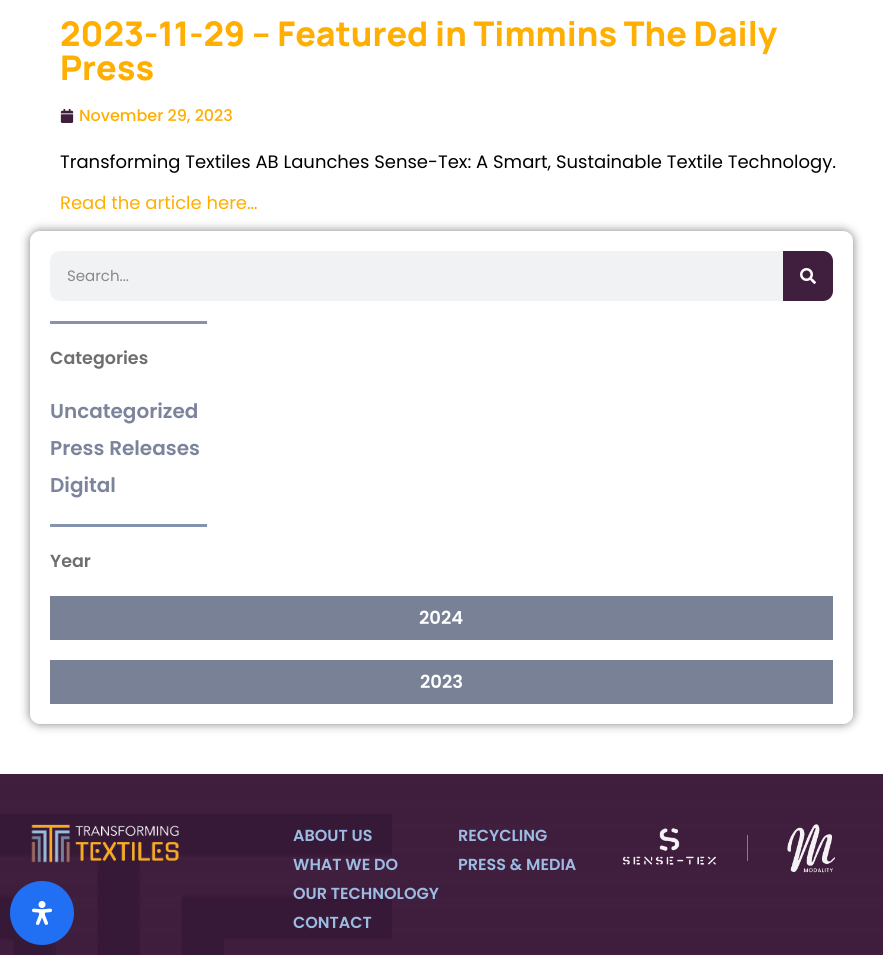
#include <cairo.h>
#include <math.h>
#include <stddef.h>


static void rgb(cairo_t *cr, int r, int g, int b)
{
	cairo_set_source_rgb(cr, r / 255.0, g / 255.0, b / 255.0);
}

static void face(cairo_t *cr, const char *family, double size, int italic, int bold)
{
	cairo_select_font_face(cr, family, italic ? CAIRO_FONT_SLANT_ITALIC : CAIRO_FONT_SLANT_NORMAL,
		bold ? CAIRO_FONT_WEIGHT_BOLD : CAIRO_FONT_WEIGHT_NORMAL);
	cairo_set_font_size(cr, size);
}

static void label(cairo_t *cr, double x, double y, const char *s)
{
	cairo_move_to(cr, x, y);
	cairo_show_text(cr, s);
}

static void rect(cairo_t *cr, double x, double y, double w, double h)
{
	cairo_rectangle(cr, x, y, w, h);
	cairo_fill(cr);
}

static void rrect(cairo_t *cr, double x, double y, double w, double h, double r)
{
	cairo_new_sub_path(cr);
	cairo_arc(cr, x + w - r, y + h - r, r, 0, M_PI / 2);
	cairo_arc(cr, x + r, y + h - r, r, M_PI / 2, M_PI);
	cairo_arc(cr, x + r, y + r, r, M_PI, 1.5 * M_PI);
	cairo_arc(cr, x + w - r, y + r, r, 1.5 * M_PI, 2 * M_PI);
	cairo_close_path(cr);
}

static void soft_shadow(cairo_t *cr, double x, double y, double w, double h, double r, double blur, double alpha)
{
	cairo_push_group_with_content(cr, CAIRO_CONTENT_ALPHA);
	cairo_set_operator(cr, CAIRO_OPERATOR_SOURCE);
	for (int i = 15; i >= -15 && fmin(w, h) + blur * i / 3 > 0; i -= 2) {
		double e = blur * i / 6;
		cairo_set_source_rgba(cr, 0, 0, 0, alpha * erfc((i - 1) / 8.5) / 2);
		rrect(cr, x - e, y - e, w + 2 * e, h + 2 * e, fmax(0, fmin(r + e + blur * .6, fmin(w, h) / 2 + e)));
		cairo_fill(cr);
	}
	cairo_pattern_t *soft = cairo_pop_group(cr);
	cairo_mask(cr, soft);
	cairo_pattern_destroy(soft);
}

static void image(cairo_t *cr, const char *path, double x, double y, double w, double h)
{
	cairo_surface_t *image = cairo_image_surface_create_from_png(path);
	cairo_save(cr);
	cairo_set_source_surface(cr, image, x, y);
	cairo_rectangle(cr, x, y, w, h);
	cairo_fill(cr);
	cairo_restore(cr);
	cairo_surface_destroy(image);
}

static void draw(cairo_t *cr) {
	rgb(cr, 255, 255, 255);
	cairo_paint(cr);
	face(cr, "Manrope ExtraBold", 34, 0, 0);
	rgb(cr, 255, 174, 2);
	label(cr, 60, 46, "2023-11-29 – Featured in Timmins The Daily");
	label(cr, 60, 80, "Press");
	image(cr, "image0.png", 60, 109, 14, 14);
	face(cr, "Poppins Medium", 16, 0, 0);
	label(cr, 79, 121, "November 29, 2023");
	face(cr, "Poppins", 18, 0, 0);
	rgb(cr, 0, 0, 0);
	label(cr, 60, 168, "Transforming Textiles AB Launches Sense-Tex: A Smart, Sustainable Textile Technology.");
	rgb(cr, 255, 174, 2);
	label(cr, 60, 209, "Read the article here…");
	rgb(cr, 0, 0, 0);
	soft_shadow(cr, 30, 231, 823, 493, 10, 5, 0.5);
	rgb(cr, 255, 255, 255);
	rrect(cr, 30, 231, 823, 493, 10);
	cairo_fill(cr);
	rgb(cr, 241, 242, 243);
	rrect(cr, 50, 251, 783, 50, 10);
	cairo_fill(cr);
	face(cr, "Poppins", 15, 0, 0);
	rgb(cr, 134, 138, 142);
	label(cr, 67, 281, "Search...");
	rgb(cr, 64, 31, 62);
	cairo_new_path(cr);
	cairo_move_to(cr, 783, 251);
	cairo_line_to(cr, 823, 251);
	cairo_curve_to(cr, 828.5, 251, 833, 255.5, 833, 261);
	cairo_line_to(cr, 833, 291);
	cairo_curve_to(cr, 833, 296.5, 828.5, 301, 823, 301);
	cairo_line_to(cr, 783, 301);
	cairo_close_path(cr);
	cairo_fill(cr);
	image(cr, "image1.png", 800, 268, 16, 16);
	rgb(cr, 132, 148, 172);
	rect(cr, 50, 321, 157, 3);
	face(cr, "Poppins SemiBold", 17.5, 0, 0);
	rgb(cr, 109, 110, 110);
	label(cr, 50, 364, "Categories");
	face(cr, "Poppins SemiBold", 20, 0, 0);
	rgb(cr, 124, 132, 156);
	label(cr, 50, 418, "Uncategorized");
	label(cr, 50, 455, "Press Releases");
	label(cr, 50, 492, "Digital");
	rgb(cr, 132, 148, 172);
	rect(cr, 50, 524, 157, 3);
	face(cr, "Poppins SemiBold", 17.5, 0, 0);
	rgb(cr, 109, 110, 110);
	label(cr, 50, 567, "Year");
	rgb(cr, 121, 129, 151);
	rect(cr, 50, 596, 783, 44);
	face(cr, "Poppins SemiBold", 18, 0, 0);
	rgb(cr, 255, 255, 255);
	label(cr, 419, 624, "2024");
	rgb(cr, 121, 129, 151);
	rect(cr, 50, 660, 783, 44);
	rgb(cr, 255, 255, 255);
	label(cr, 420, 688, "2023");
	image(cr, "image3.png", 0, 774, 883, 181);
	rgb(cr, 33, 111, 243);
	cairo_arc(cr, 42, 913, 32, 0, 2 * M_PI);
	cairo_fill(cr);
	image(cr, "image2.png", 32, 901, 20, 24);
	image(cr, "image4.png", 31, 824, 148, 39);
	face(cr, "Poppins SemiBold", 16, 0, 0);
	rgb(cr, 156, 188, 227);
	label(cr, 293, 841, "ABOUT US");
	label(cr, 293, 870, "WHAT WE DO");
	label(cr, 293, 899, "OUR TECHNOLOGY");
	label(cr, 293, 928, "CONTACT");
	label(cr, 458, 841, "RECYCLING");
	label(cr, 458, 870, "PRESS & MEDIA");
	image(cr, "image5.png", 623, 824, 212, 49);
}

int main(void) {
	cairo_surface_t *surface = cairo_image_surface_create(CAIRO_FORMAT_RGB24, 883, 955);
	cairo_t *cr = cairo_create(surface);
	cairo_font_options_t *options = cairo_font_options_create();
	cairo_font_options_set_hint_metrics(options, CAIRO_HINT_METRICS_OFF);
	cairo_font_options_set_hint_style(options, CAIRO_HINT_STYLE_NONE);
	cairo_set_font_options(cr, options);
	cairo_set_miter_limit(cr, 4);
	draw(cr);
	cairo_surface_write_to_png(surface, "render.png");
	cairo_font_options_destroy(options);
	cairo_destroy(cr);
	cairo_surface_destroy(surface);
	return 0;
}
